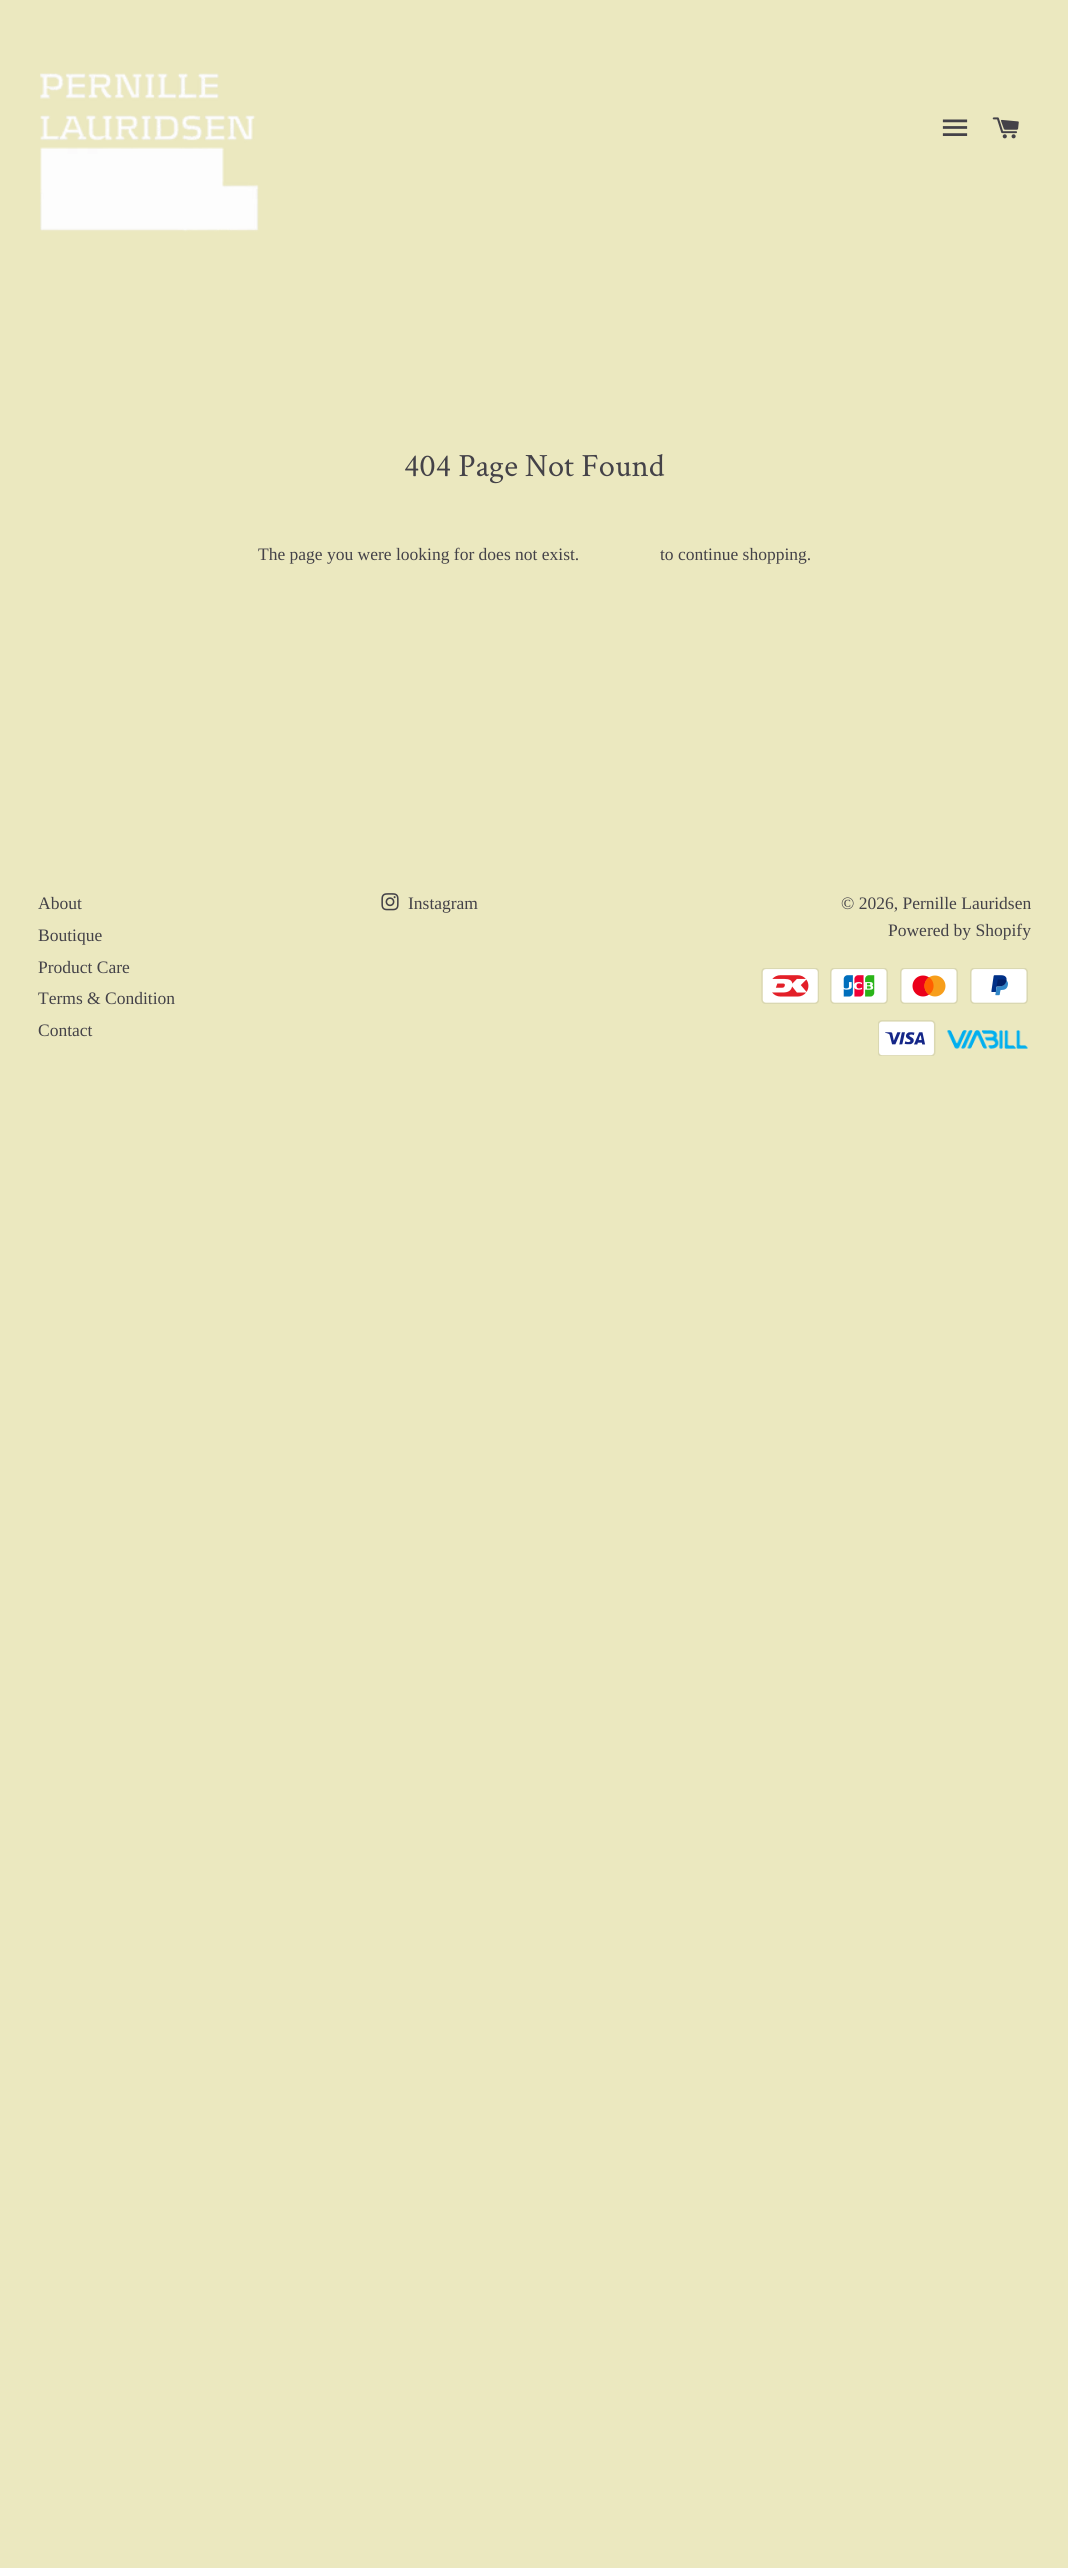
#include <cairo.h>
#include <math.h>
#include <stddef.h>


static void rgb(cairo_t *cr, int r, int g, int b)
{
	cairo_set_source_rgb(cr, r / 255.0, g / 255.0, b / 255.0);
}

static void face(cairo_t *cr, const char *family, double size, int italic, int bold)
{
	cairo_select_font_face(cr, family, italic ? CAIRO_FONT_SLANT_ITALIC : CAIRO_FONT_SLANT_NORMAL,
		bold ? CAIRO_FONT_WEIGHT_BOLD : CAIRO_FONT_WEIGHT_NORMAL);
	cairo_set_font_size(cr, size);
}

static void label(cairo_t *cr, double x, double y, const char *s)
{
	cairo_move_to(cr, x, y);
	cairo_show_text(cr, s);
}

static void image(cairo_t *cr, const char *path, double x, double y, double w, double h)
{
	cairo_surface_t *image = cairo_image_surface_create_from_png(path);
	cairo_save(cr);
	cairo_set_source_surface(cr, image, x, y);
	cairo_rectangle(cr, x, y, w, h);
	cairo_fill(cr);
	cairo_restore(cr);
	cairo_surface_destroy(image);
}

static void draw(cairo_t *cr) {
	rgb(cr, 235, 232, 191);
	cairo_paint(cr);
	image(cr, "image0.png", 40, 73, 219, 159);
	image(cr, "image1.png", 942, 119, 26, 17);
	image(cr, "image2.png", 992, 117, 27, 22);
	face(cr, "Crimson Text", 32.5, 0, 0);
	rgb(cr, 68, 66, 72);
	label(cr, 404, 476, "404 Page Not Found");
	face(cr, "Liberation Serif", 17.5, 0, 0);
	label(cr, 258, 560, "The page you were looking for does not exist.");
	label(cr, 660, 560, "to continue shopping.");
	label(cr, 38, 909, "About");
	label(cr, 38, 941, "Boutique");
	label(cr, 38, 973, "Product Care");
	label(cr, 38, 1004, "Terms & Condition");
	label(cr, 38, 1036, "Contact");
	image(cr, "image3.png", 381, 893, 18, 18);
	label(cr, 408, 909, "Instagram");
	label(cr, 841, 909, "© 2026, Pernille Lauridsen");
	label(cr, 888, 936, "Powered by Shopify");
	image(cr, "image4.png", 761, 968, 58, 36);
	image(cr, "image5.png", 830, 968, 58, 36);
	image(cr, "image6.png", 900, 968, 58, 36);
	image(cr, "image7.png", 970, 968, 58, 36);
	image(cr, "image8.png", 878, 1020, 58, 36);
	image(cr, "image9.png", 947, 1030, 81, 19);
}

int main(void) {
	cairo_surface_t *surface = cairo_image_surface_create(CAIRO_FORMAT_RGB24, 1068, 2568);
	cairo_t *cr = cairo_create(surface);
	cairo_font_options_t *options = cairo_font_options_create();
	cairo_font_options_set_hint_metrics(options, CAIRO_HINT_METRICS_OFF);
	cairo_font_options_set_hint_style(options, CAIRO_HINT_STYLE_NONE);
	cairo_set_font_options(cr, options);
	cairo_set_miter_limit(cr, 4);
	draw(cr);
	cairo_surface_write_to_png(surface, "render.png");
	cairo_font_options_destroy(options);
	cairo_destroy(cr);
	cairo_surface_destroy(surface);
	return 0;
}
